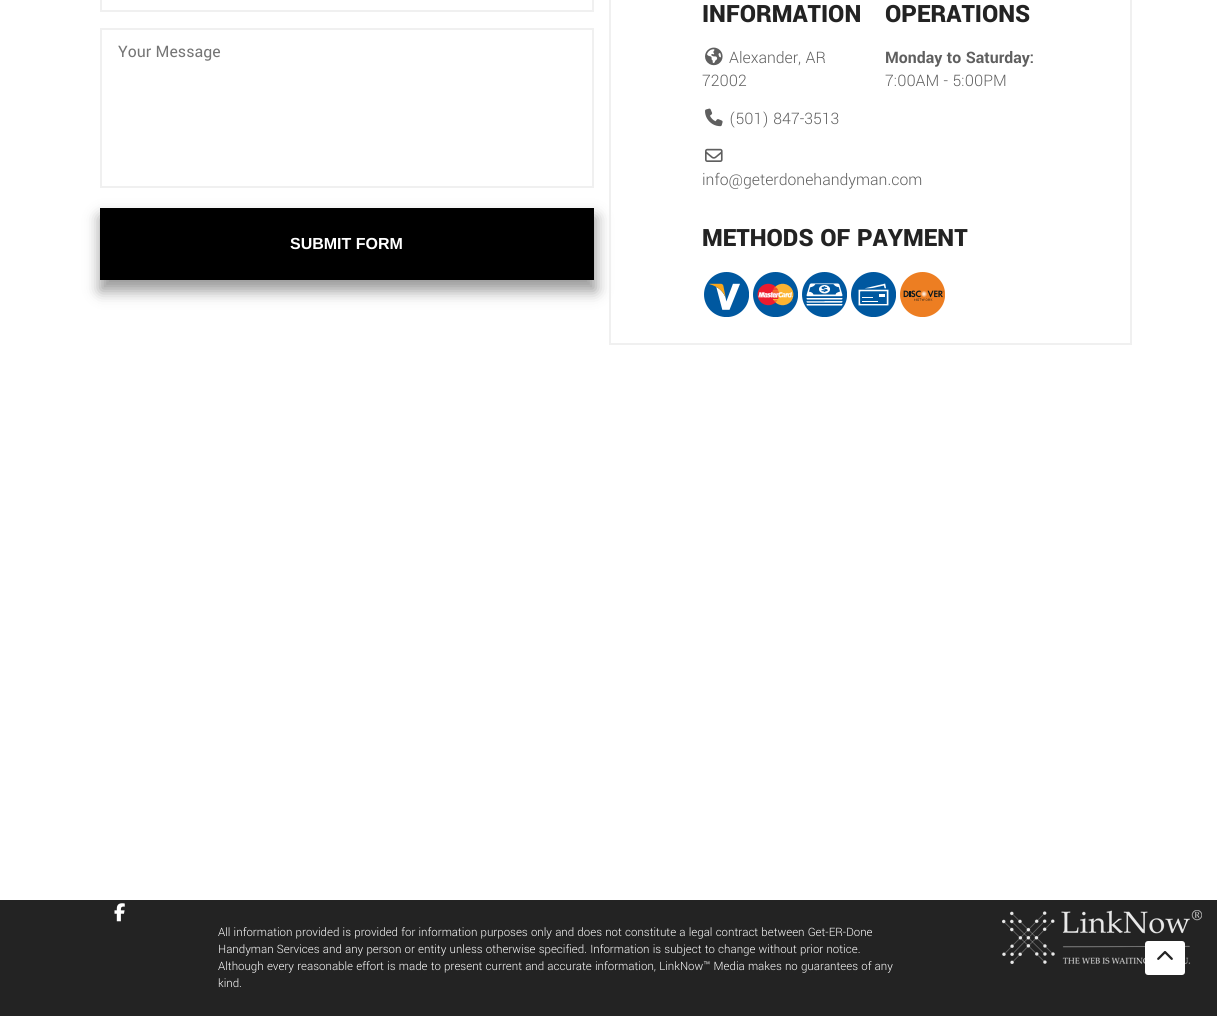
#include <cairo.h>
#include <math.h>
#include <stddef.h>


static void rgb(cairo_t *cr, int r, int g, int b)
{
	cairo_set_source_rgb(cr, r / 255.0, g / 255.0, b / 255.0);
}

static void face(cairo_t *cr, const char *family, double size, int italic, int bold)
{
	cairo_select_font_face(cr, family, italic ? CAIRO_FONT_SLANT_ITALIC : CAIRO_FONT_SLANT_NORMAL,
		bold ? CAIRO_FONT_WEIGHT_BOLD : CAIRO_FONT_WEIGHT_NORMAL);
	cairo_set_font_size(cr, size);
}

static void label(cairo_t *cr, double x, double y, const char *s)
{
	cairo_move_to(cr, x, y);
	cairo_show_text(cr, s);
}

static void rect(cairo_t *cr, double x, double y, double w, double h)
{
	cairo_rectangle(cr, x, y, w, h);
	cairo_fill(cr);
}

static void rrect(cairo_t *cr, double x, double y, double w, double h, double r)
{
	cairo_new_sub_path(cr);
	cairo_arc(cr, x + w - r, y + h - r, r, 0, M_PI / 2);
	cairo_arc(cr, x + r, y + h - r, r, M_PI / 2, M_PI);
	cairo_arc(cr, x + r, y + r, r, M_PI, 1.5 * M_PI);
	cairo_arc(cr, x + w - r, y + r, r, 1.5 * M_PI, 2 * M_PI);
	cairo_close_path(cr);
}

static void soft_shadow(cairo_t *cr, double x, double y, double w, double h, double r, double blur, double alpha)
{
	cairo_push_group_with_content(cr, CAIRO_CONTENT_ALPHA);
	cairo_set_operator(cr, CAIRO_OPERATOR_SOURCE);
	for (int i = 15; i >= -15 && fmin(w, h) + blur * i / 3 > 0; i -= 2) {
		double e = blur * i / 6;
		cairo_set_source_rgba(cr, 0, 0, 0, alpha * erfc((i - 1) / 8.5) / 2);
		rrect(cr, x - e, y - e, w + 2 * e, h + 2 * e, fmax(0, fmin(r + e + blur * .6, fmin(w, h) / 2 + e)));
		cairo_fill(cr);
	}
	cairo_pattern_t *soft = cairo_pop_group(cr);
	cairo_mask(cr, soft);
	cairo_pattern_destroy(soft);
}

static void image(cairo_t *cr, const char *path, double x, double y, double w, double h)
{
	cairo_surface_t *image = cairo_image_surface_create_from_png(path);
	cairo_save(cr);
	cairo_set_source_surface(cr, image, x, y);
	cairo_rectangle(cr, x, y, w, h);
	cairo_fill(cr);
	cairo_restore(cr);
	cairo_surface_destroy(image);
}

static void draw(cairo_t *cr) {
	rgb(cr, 255, 255, 255);
	cairo_paint(cr);
	cairo_rectangle(cr, 101, -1, 492, 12);
	rgb(cr, 240, 240, 240);
	cairo_stroke(cr);
	cairo_rectangle(cr, 101, 29, 492, 158);
	cairo_stroke(cr);
	face(cr, "Yantramanav", 17.6, 0, 0);
	rgb(cr, 117, 117, 117);
	label(cr, 118, 57, "Your Message");
	rgb(cr, 0, 0, 0);
	soft_shadow(cr, 100, 217, 496, 74, 0, 7.5, 0.4);
	rgb(cr, 0, 0, 0);
	rect(cr, 100, 208, 494, 72);
	face(cr, "Liberation Sans", 16, 0, 1);
	rgb(cr, 255, 255, 255);
	label(cr, 290, 249, "SUBMIT FORM");
	cairo_rectangle(cr, 610, -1, 521, 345);
	rgb(cr, 240, 240, 240);
	cairo_stroke(cr);
	face(cr, "Yantramanav Black", 26.5, 0, 0);
	rgb(cr, 35, 35, 35);
	label(cr, 702, 22, "INFORMATION");
	image(cr, "image0.png", 705, 47, 18, 19);
	face(cr, "Yantramanav Light", 17.6, 0, 0);
	rgb(cr, 95, 95, 95);
	label(cr, 729, 63, "Alexander, AR");
	label(cr, 702, 86, "72002");
	image(cr, "image1.png", 705, 108, 18, 19);
	label(cr, 729, 124, "(501) 847-3513");
	image(cr, "image2.png", 705, 148, 18, 14);
	label(cr, 702, 185, "info@geterdonehandyman.com");
	face(cr, "Yantramanav Black", 26.5, 0, 0);
	rgb(cr, 35, 35, 35);
	label(cr, 885, 22, "OPERATIONS");
	face(cr, "Yantramanav", 17.6, 0, 1);
	rgb(cr, 95, 95, 95);
	label(cr, 885, 63, "Monday to Saturday:");
	face(cr, "Yantramanav Light", 17.6, 0, 0);
	label(cr, 885, 86, "7:00AM - 5:00PM");
	face(cr, "Yantramanav Black", 26.5, 0, 0);
	rgb(cr, 35, 35, 35);
	label(cr, 702, 246, "METHODS OF PAYMENT");
	image(cr, "image3.png", 704, 272, 45, 45);
	image(cr, "image4.png", 753, 272, 45, 45);
	image(cr, "image5.png", 802, 272, 45, 45);
	image(cr, "image6.png", 851, 272, 45, 45);
	image(cr, "image7.png", 900, 272, 45, 45);
	rect(cr, 0, 900, 1217, 116);
	image(cr, "image8.png", 114, 903, 11, 19);
	face(cr, "Yantramanav Light", 12.8, 0, 0);
	rgb(cr, 255, 255, 255);
	label(cr, 218, 936, "All information provided is provided for information purposes only and does not constitute a legal contract between Get-ER-Done");
	label(cr, 218, 953, "Handyman Services and any person or entity unless otherwise specified. Information is subject to change without prior notice.");
	label(cr, 218, 970, "Although every reasonable effort is made to present current and accurate information, LinkNow™ Media makes no guarantees of any");
	label(cr, 218, 987, "kind.");
	image(cr, "image9.png", 1002, 910, 200, 54);
	rrect(cr, 1145, 941, 40, 34, 3);
	cairo_fill(cr);
	image(cr, "image10.png", 1157, 951, 16, 9);
}

int main(void) {
	cairo_surface_t *surface = cairo_image_surface_create(CAIRO_FORMAT_RGB24, 1217, 1016);
	cairo_t *cr = cairo_create(surface);
	cairo_font_options_t *options = cairo_font_options_create();
	cairo_font_options_set_hint_metrics(options, CAIRO_HINT_METRICS_OFF);
	cairo_font_options_set_hint_style(options, CAIRO_HINT_STYLE_NONE);
	cairo_set_font_options(cr, options);
	cairo_set_miter_limit(cr, 4);
	draw(cr);
	cairo_surface_write_to_png(surface, "render.png");
	cairo_font_options_destroy(options);
	cairo_destroy(cr);
	cairo_surface_destroy(surface);
	return 0;
}
